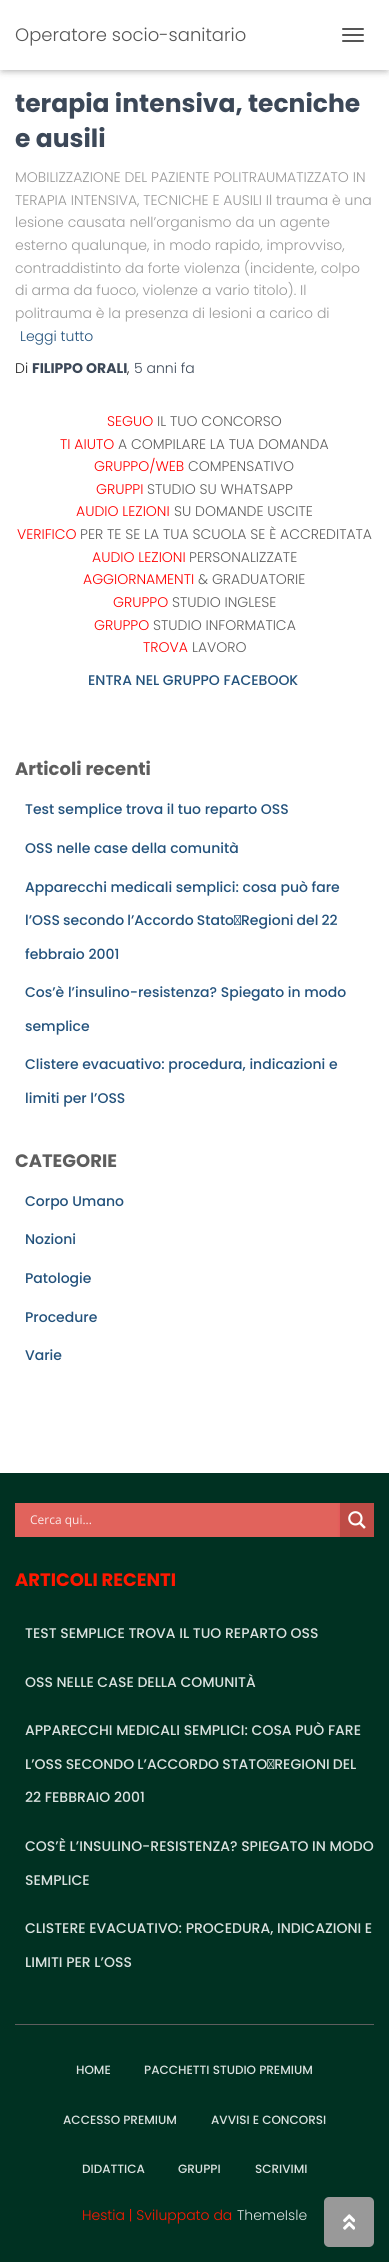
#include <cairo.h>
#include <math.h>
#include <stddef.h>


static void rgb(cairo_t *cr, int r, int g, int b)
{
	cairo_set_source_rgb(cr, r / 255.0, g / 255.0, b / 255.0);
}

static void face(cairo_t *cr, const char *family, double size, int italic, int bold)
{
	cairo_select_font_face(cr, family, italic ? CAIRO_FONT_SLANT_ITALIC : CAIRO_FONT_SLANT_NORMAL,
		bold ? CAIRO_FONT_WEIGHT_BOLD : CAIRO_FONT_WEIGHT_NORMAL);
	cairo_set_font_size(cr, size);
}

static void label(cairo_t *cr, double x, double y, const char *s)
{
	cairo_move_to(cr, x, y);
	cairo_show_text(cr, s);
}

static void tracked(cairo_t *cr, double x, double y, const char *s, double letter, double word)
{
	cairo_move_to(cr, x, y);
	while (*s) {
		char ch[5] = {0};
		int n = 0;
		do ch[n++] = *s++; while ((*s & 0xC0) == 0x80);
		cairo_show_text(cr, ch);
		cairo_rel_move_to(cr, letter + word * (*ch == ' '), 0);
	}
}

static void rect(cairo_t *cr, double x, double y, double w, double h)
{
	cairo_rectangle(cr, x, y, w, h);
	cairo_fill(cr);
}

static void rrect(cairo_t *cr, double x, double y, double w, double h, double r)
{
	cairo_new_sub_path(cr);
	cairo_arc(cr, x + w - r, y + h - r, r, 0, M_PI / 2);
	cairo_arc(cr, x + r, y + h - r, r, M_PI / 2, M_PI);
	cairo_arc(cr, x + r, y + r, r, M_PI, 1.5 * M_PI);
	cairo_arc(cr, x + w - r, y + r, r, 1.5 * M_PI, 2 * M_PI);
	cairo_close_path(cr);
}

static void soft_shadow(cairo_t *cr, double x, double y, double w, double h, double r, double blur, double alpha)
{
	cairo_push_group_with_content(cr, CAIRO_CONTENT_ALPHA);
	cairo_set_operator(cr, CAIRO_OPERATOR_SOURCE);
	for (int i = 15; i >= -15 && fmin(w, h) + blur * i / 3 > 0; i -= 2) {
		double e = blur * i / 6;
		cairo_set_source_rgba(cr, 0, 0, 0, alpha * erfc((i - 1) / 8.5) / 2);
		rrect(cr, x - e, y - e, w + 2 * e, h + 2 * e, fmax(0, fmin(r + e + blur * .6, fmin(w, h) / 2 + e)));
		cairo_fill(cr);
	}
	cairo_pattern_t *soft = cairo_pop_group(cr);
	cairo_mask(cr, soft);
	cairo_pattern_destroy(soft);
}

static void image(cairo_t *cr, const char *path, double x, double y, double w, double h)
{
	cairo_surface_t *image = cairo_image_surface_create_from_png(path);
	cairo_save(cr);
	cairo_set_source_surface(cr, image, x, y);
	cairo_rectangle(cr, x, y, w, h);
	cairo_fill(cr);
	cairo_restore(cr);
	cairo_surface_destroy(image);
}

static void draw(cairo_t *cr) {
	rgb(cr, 0, 49, 34);
	cairo_paint(cr);
	rgb(cr, 255, 255, 255);
	rect(cr, 0, 70, 389, 1403);
	rgb(cr, 0, 0, 0);
	soft_shadow(cr, 2, 6, 385, 66, 0, 2.5, 0.1);
	soft_shadow(cr, 0, 1, 389, 70, 0, 5, 0.12);
	soft_shadow(cr, 6, 7, 377, 58, 0, 5, 0.42);
	rgb(cr, 255, 255, 255);
	rect(cr, 0, 0, 389, 70);
	face(cr, "Poppins Light", 18, 0, 0);
	rgb(cr, 85, 85, 85);
	label(cr, 15, 41, "Operatore socio-sanitario");
	rrect(cr, 342, 28, 22, 2, 1);
	cairo_fill(cr);
	rrect(cr, 342, 34, 22, 2, 1);
	cairo_fill(cr);
	rrect(cr, 342, 40, 22, 2, 1);
	cairo_fill(cr);
	face(cr, "Poppins", 25, 0, 1);
	rgb(cr, 60, 72, 88);
	label(cr, 15, 112, "terapia intensiva, tecniche");
	label(cr, 15, 147, "e ausili");
	face(cr, "Poppins Light", 14, 0, 0);
	rgb(cr, 153, 153, 153);
	label(cr, 15, 182, "MOBILIZZAZIONE DEL PAZIENTE POLITRAUMATIZZATO IN");
	label(cr, 15, 205, "TERAPIA INTENSIVA, TECNICHE E AUSILI Il trauma è una");
	label(cr, 15, 227, "lesione causata nell’organismo da un agente");
	label(cr, 15, 250, "esterno qualunque, in modo rapido, improvviso,");
	label(cr, 15, 273, "contraddistinto da forte violenza (incidente, colpo");
	label(cr, 15, 295, "di arma da fuoco, violenze a vario titolo). Il");
	label(cr, 15, 318, "politrauma è la presenza di lesioni a carico di");
	rgb(cr, 35, 82, 124);
	label(cr, 20, 341, "Leggi tutto");
	rgb(cr, 33, 33, 33);
	label(cr, 15, 373, "Di");
	face(cr, "Poppins", 14, 0, 1);
	rgb(cr, 60, 72, 88);
	label(cr, 32, 373, "FILIPPO ORALI");
	face(cr, "Poppins Light", 14, 0, 0);
	rgb(cr, 33, 33, 33);
	label(cr, 127, 373, ",");
	rgb(cr, 60, 72, 88);
	label(cr, 134, 373, "5 anni fa");
	rgb(cr, 255, 0, 0);
	label(cr, 107, 426, "SEGUO");
	rgb(cr, 94, 94, 94);
	label(cr, 157, 426, "IL TUO CONCORSO");
	rgb(cr, 255, 0, 0);
	label(cr, 60, 449, "TI AIUTO");
	rgb(cr, 94, 94, 94);
	label(cr, 118, 449, "A COMPILARE LA TUA DOMANDA");
	rgb(cr, 255, 0, 0);
	label(cr, 94, 471, "GRUPPO/WEB");
	rgb(cr, 94, 94, 94);
	label(cr, 188, 471, "COMPENSATIVO");
	rgb(cr, 255, 0, 0);
	label(cr, 96, 494, "GRUPPI");
	rgb(cr, 94, 94, 94);
	label(cr, 147, 494, "STUDIO SU WHATSAPP");
	rgb(cr, 255, 0, 0);
	label(cr, 76, 516, "AUDIO LEZIONI");
	rgb(cr, 94, 94, 94);
	label(cr, 174, 516, "SU DOMANDE USCITE");
	rgb(cr, 255, 0, 0);
	label(cr, 17, 539, "VERIFICO");
	rgb(cr, 94, 94, 94);
	label(cr, 80, 539, "PER TE SE LA TUA SCUOLA SE È ACCREDITATA");
	rgb(cr, 255, 0, 0);
	label(cr, 92, 562, "AUDIO LEZIONI");
	rgb(cr, 94, 94, 94);
	label(cr, 189, 562, "PERSONALIZZATE");
	rgb(cr, 255, 0, 0);
	label(cr, 83, 584, "AGGIORNAMENTI");
	rgb(cr, 94, 94, 94);
	label(cr, 198, 584, "& GRADUATORIE");
	rgb(cr, 255, 0, 0);
	label(cr, 113, 607, "GRUPPO");
	rgb(cr, 94, 94, 94);
	label(cr, 172, 607, "STUDIO INGLESE");
	rgb(cr, 255, 0, 0);
	label(cr, 94, 630, "GRUPPO");
	rgb(cr, 94, 94, 94);
	label(cr, 153, 630, "STUDIO INFORMATICA");
	rgb(cr, 255, 0, 0);
	label(cr, 143, 652, "TROVA");
	rgb(cr, 94, 94, 94);
	label(cr, 192, 652, "LAVORO");
	face(cr, "Poppins Medium", 14, 0, 0);
	rgb(cr, 35, 82, 124);
	label(cr, 88, 685, "ENTRA NEL GRUPPO FACEBOOK");
	face(cr, "Poppins", 18, 0, 1);
	rgb(cr, 94, 94, 94);
	label(cr, 15, 775, "Articoli recenti");
	face(cr, "Poppins Medium", 14, 0, 0);
	rgb(cr, 35, 82, 124);
	label(cr, 25, 814, "Test semplice trova il tuo reparto OSS");
	label(cr, 25, 853, "OSS nelle case della comunità");
	label(cr, 25, 892, "Apparecchi medicali semplici: cosa può fare");
	tracked(cr, 25, 925, "l’OSS secondo l’Accordo Stato‑Regioni del 22", 0, -0.5);
	label(cr, 25, 959, "febbraio 2001");
	label(cr, 25, 997, "Cos’è l’insulino-resistenza? Spiegato in modo");
	label(cr, 25, 1031, "semplice");
	label(cr, 25, 1069, "Clistere evacuativo: procedura, indicazioni e");
	label(cr, 25, 1103, "limiti per l’OSS");
	face(cr, "Poppins", 18, 0, 1);
	rgb(cr, 94, 94, 94);
	label(cr, 15, 1167, "CATEGORIE");
	face(cr, "Poppins Medium", 14, 0, 0);
	rgb(cr, 35, 82, 124);
	label(cr, 25, 1206, "Corpo Umano");
	label(cr, 25, 1244, "Nozioni");
	label(cr, 25, 1283, "Patologie");
	label(cr, 25, 1322, "Procedure");
	label(cr, 25, 1360, "Varie");
	rgb(cr, 225, 99, 92);
	rect(cr, 15, 1503, 325, 34);
	face(cr, "Open Sans", 12, 0, 0);
	rgb(cr, 251, 232, 231);
	label(cr, 30, 1524, "Cerca qui...");
	cairo_save(cr);
	cairo_rectangle(cr, 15, 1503, 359, 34);
	cairo_clip(cr);
	rgb(cr, 255, 0, 68);
	soft_shadow(cr, 340, 1504, 34, 34, 0, 2.5, 0.12);
	soft_shadow(cr, 340, 1505, 34, 34, 0, 1, 0.14);
	cairo_restore(cr);
	rgb(cr, 190, 76, 70);
	rect(cr, 340, 1503, 34, 34);
	image(cr, "image0.png", 348, 1511, 18, 18);
	face(cr, "Poppins", 18, 0, 1);
	rgb(cr, 255, 24, 0);
	label(cr, 15, 1586, "ARTICOLI RECENTI");
	face(cr, "Poppins Medium", 14, 0, 0);
	rgb(cr, 219, 226, 224);
	label(cr, 25, 1638, "TEST SEMPLICE TROVA IL TUO REPARTO OSS");
	label(cr, 25, 1687, "OSS NELLE CASE DELLA COMUNITÀ");
	label(cr, 25, 1735, "APPARECCHI MEDICALI SEMPLICI: COSA PUÒ FARE");
	tracked(cr, 25, 1769, "L’OSS SECONDO L’ACCORDO STATO‑REGIONI DEL", 0, -0.5);
	label(cr, 25, 1802, "22 FEBBRAIO 2001");
	label(cr, 25, 1851, "COS’È L’INSULINO-RESISTENZA? SPIEGATO IN MODO");
	label(cr, 25, 1885, "SEMPLICE");
	label(cr, 25, 1933, "CLISTERE EVACUATIVO: PROCEDURA, INDICAZIONI E");
	label(cr, 25, 1967, "LIMITI PER L’OSS");
	rgb(cr, 94, 94, 94);
	rect(cr, 15, 2024, 359, 1);
	face(cr, "Poppins Medium", 12, 0, 0);
	rgb(cr, 219, 226, 224);
	label(cr, 76, 2074, "HOME");
	label(cr, 144, 2074, "PACCHETTI STUDIO PREMIUM");
	label(cr, 63, 2124, "ACCESSO PREMIUM");
	label(cr, 211, 2124, "AVVISI E CONCORSI");
	label(cr, 82, 2173, "DIDATTICA");
	label(cr, 178, 2173, "GRUPPI");
	label(cr, 255, 2173, "SCRIVIMI");
	face(cr, "Poppins Light", 14, 0, 0);
	rgb(cr, 255, 24, 0);
	label(cr, 82, 2220, "Hestia | Sviluppato da");
	rgb(cr, 219, 226, 224);
	label(cr, 237, 2220, "ThemeIsle");
	rgb(cr, 153, 153, 153);
	rrect(cr, 324, 2197, 50, 50, 5);
	cairo_fill(cr);
	image(cr, "image1.png", 343, 2214, 12, 16);
}

int main(void) {
	cairo_surface_t *surface = cairo_image_surface_create(CAIRO_FORMAT_RGB24, 389, 2262);
	cairo_t *cr = cairo_create(surface);
	cairo_font_options_t *options = cairo_font_options_create();
	cairo_font_options_set_hint_metrics(options, CAIRO_HINT_METRICS_OFF);
	cairo_font_options_set_hint_style(options, CAIRO_HINT_STYLE_NONE);
	cairo_set_font_options(cr, options);
	cairo_set_miter_limit(cr, 4);
	draw(cr);
	cairo_surface_write_to_png(surface, "render.png");
	cairo_font_options_destroy(options);
	cairo_destroy(cr);
	cairo_surface_destroy(surface);
	return 0;
}
